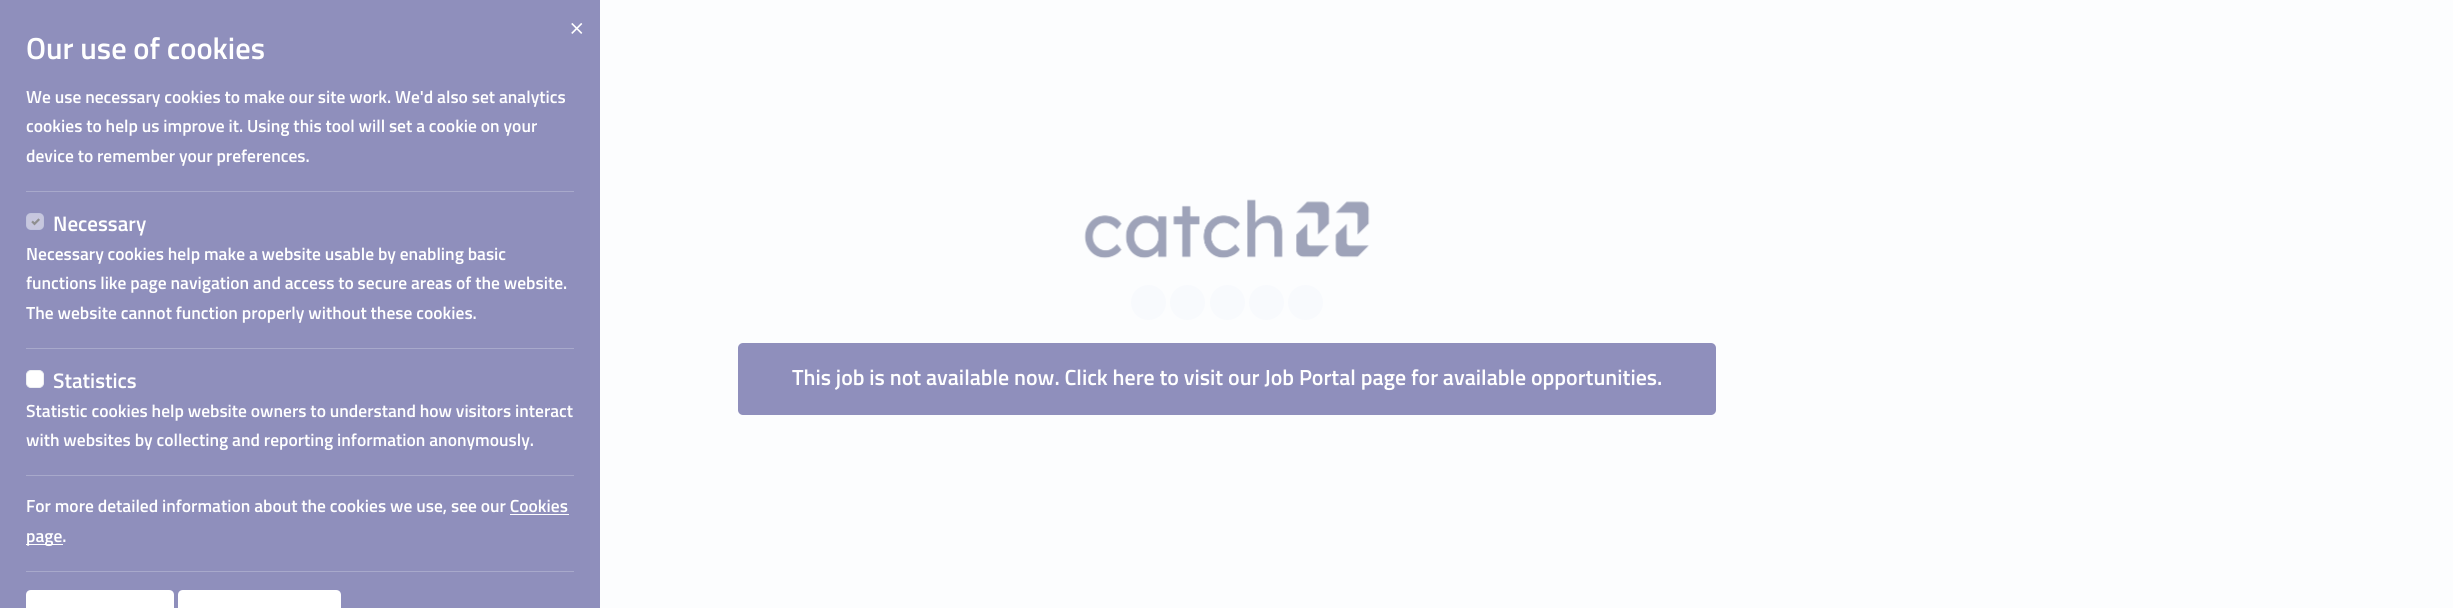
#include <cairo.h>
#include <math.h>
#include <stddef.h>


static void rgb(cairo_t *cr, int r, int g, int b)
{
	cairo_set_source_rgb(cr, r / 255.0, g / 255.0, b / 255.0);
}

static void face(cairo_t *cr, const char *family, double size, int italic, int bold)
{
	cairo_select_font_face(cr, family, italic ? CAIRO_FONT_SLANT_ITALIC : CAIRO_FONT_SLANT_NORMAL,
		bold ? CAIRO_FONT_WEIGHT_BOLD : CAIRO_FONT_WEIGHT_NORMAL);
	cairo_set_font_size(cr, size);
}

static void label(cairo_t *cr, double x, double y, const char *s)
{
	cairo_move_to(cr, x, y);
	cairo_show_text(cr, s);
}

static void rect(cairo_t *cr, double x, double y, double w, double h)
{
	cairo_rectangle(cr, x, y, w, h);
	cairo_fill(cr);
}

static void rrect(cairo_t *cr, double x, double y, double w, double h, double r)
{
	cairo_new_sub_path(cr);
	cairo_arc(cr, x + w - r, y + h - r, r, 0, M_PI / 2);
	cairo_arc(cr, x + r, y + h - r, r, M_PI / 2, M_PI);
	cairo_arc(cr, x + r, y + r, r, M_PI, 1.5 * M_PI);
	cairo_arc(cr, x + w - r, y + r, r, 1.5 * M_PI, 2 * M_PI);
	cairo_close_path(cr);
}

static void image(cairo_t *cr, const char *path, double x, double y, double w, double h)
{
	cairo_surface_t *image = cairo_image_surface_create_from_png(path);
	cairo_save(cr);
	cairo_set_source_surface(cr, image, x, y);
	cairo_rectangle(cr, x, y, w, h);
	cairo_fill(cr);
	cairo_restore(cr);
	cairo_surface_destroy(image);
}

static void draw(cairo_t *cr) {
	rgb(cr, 252, 253, 254);
	cairo_paint(cr);
	rgb(cr, 143, 143, 188);
	rect(cr, 0, 0, 600, 608);
	image(cr, "image0.png", 571, 23, 12, 11);
	face(cr, "Sunflower Medium", 30.5, 0, 0);
	rgb(cr, 255, 255, 255);
	label(cr, 26, 59, "Our use of cookies");
	face(cr, "Sunflower Medium", 17.5, 0, 0);
	label(cr, 26, 103, "We use necessary cookies to make our site work. We'd also set analytics");
	label(cr, 26, 132, "cookies to help us improve it. Using this tool will set a cookie on your");
	label(cr, 26, 162, "device to remember your preferences.");
	rgb(cr, 168, 169, 203);
	rect(cr, 26, 191, 548, 1);
	rgb(cr, 199, 199, 222);
	rrect(cr, 26, 213, 18, 17, 5);
	cairo_fill(cr);
	rrect(cr, 26.5, 213.5, 17, 16, 4.5);
	cairo_set_source_rgba(cr, 0.573, 0.671, 0.859, 0.1);
	cairo_set_line_width(cr, 1);
	cairo_stroke(cr);
	face(cr, "Sunflower Medium", 21, 0, 0);
	rgb(cr, 255, 255, 255);
	label(cr, 53, 231, "Necessary");
	image(cr, "image1.png", 31, 218, 9, 8);
	face(cr, "Sunflower Medium", 17.5, 0, 0);
	label(cr, 26, 260, "Necessary cookies help make a website usable by enabling basic");
	label(cr, 26, 289, "functions like page navigation and access to secure areas of the website.");
	label(cr, 26, 319, "The website cannot function properly without these cookies.");
	rgb(cr, 168, 169, 203);
	rect(cr, 26, 348, 548, 1);
	rgb(cr, 255, 255, 255);
	rrect(cr, 26.5, 370.5, 17, 17, 4.5);
	cairo_fill_preserve(cr);
	rgb(cr, 237, 239, 242);
	cairo_stroke(cr);
	face(cr, "Sunflower Medium", 21, 0, 0);
	rgb(cr, 255, 255, 255);
	label(cr, 53, 388, "Statistics");
	face(cr, "Sunflower Medium", 17.5, 0, 0);
	label(cr, 26, 417, "Statistic cookies help website owners to understand how visitors interact");
	label(cr, 26, 446, "with websites by collecting and reporting information anonymously.");
	rgb(cr, 168, 169, 203);
	rect(cr, 26, 475, 548, 1);
	rgb(cr, 255, 255, 255);
	label(cr, 26, 512, "For more detailed information about the cookies we use, see our Cookies");
	rect(cr, 26, 544, 37, 1);
	label(cr, 26, 542, "page.");
	rect(cr, 510, 514, 59, 1);
	rgb(cr, 168, 169, 203);
	rect(cr, 26, 571, 548, 1);
	rgb(cr, 255, 255, 255);
	cairo_new_path(cr);
	cairo_move_to(cr, 31, 590);
	cairo_line_to(cr, 169, 590);
	cairo_curve_to(cr, 172, 590, 174, 592, 174, 595);
	cairo_line_to(cr, 174, 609);
	cairo_line_to(cr, 26, 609);
	cairo_line_to(cr, 26, 595);
	cairo_curve_to(cr, 26, 592, 28, 590, 31, 590);
	cairo_close_path(cr);
	cairo_fill(cr);
	cairo_new_path(cr);
	cairo_move_to(cr, 183, 590);
	cairo_line_to(cr, 336, 590);
	cairo_curve_to(cr, 339, 590, 341, 592, 341, 595);
	cairo_line_to(cr, 341, 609);
	cairo_line_to(cr, 178, 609);
	cairo_line_to(cr, 178, 595);
	cairo_curve_to(cr, 178, 592, 180, 590, 183, 590);
	cairo_close_path(cr);
	cairo_fill(cr);
	rgb(cr, 248, 250, 253);
	cairo_arc(cr, 1148.5, 302.5, 17.5, 0, 2 * M_PI);
	cairo_fill(cr);
	cairo_arc(cr, 1187.5, 302.5, 17.5, 0, 2 * M_PI);
	cairo_fill(cr);
	cairo_arc(cr, 1227.5, 302.5, 17.5, 0, 2 * M_PI);
	cairo_fill(cr);
	cairo_arc(cr, 1266.5, 302.5, 17.5, 0, 2 * M_PI);
	cairo_fill(cr);
	cairo_arc(cr, 1305.5, 302.5, 17.5, 0, 2 * M_PI);
	cairo_fill(cr);
	image(cr, "image2.png", 1084, 199, 286, 60);
	rgb(cr, 143, 143, 188);
	rrect(cr, 738, 343, 978, 72, 5);
	cairo_fill(cr);
	face(cr, "Sunflower Medium", 21.9, 0, 0);
	rgb(cr, 255, 255, 255);
	label(cr, 792, 385, "This job is not available now. Click here to visit our Job Portal page for available opportunities.");
}

int main(void) {
	cairo_surface_t *surface = cairo_image_surface_create(CAIRO_FORMAT_RGB24, 2453, 608);
	cairo_t *cr = cairo_create(surface);
	cairo_font_options_t *options = cairo_font_options_create();
	cairo_font_options_set_hint_metrics(options, CAIRO_HINT_METRICS_OFF);
	cairo_font_options_set_hint_style(options, CAIRO_HINT_STYLE_NONE);
	cairo_set_font_options(cr, options);
	cairo_set_miter_limit(cr, 4);
	draw(cr);
	cairo_surface_write_to_png(surface, "render.png");
	cairo_font_options_destroy(options);
	cairo_destroy(cr);
	cairo_surface_destroy(surface);
	return 0;
}
